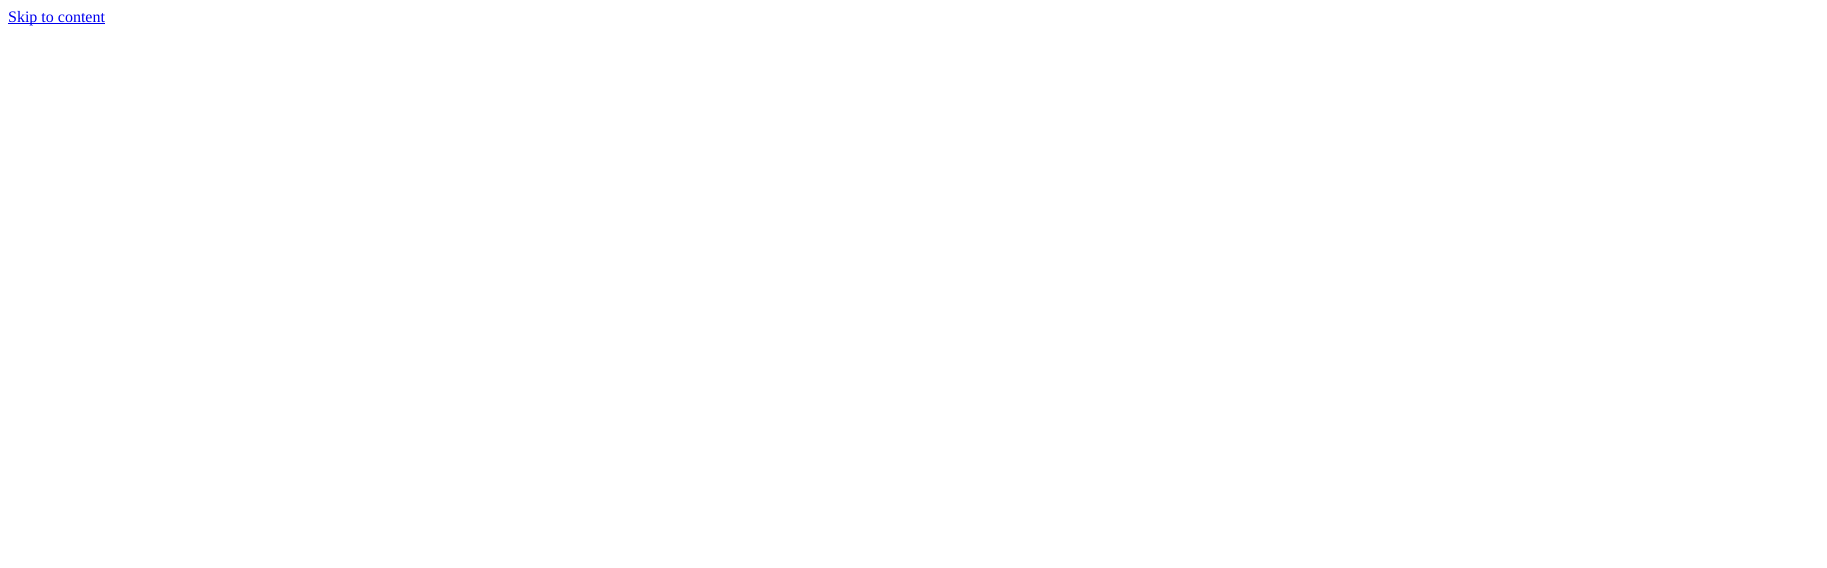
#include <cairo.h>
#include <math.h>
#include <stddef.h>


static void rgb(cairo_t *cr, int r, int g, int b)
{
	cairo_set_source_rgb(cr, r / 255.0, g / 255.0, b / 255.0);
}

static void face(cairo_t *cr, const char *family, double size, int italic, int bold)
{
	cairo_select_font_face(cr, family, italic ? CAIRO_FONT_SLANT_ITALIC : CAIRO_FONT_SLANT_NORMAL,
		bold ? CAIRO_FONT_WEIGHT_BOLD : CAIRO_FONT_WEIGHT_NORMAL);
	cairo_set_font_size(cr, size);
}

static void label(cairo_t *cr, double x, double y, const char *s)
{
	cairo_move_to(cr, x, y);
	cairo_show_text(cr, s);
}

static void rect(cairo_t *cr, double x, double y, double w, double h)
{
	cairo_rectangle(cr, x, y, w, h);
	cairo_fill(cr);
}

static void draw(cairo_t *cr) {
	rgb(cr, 255, 255, 255);
	cairo_paint(cr);
	rgb(cr, 0, 0, 238);
	rect(cr, 8, 23, 97, 1);
	face(cr, "Liberation Serif", 16, 0, 0);
	label(cr, 8, 22, "Skip to content");
}

int main(void) {
	cairo_surface_t *surface = cairo_image_surface_create(CAIRO_FORMAT_RGB24, 1827, 568);
	cairo_t *cr = cairo_create(surface);
	cairo_font_options_t *options = cairo_font_options_create();
	cairo_font_options_set_hint_metrics(options, CAIRO_HINT_METRICS_OFF);
	cairo_font_options_set_hint_style(options, CAIRO_HINT_STYLE_NONE);
	cairo_set_font_options(cr, options);
	cairo_set_miter_limit(cr, 4);
	draw(cr);
	cairo_surface_write_to_png(surface, "render.png");
	cairo_font_options_destroy(options);
	cairo_destroy(cr);
	cairo_surface_destroy(surface);
	return 0;
}
